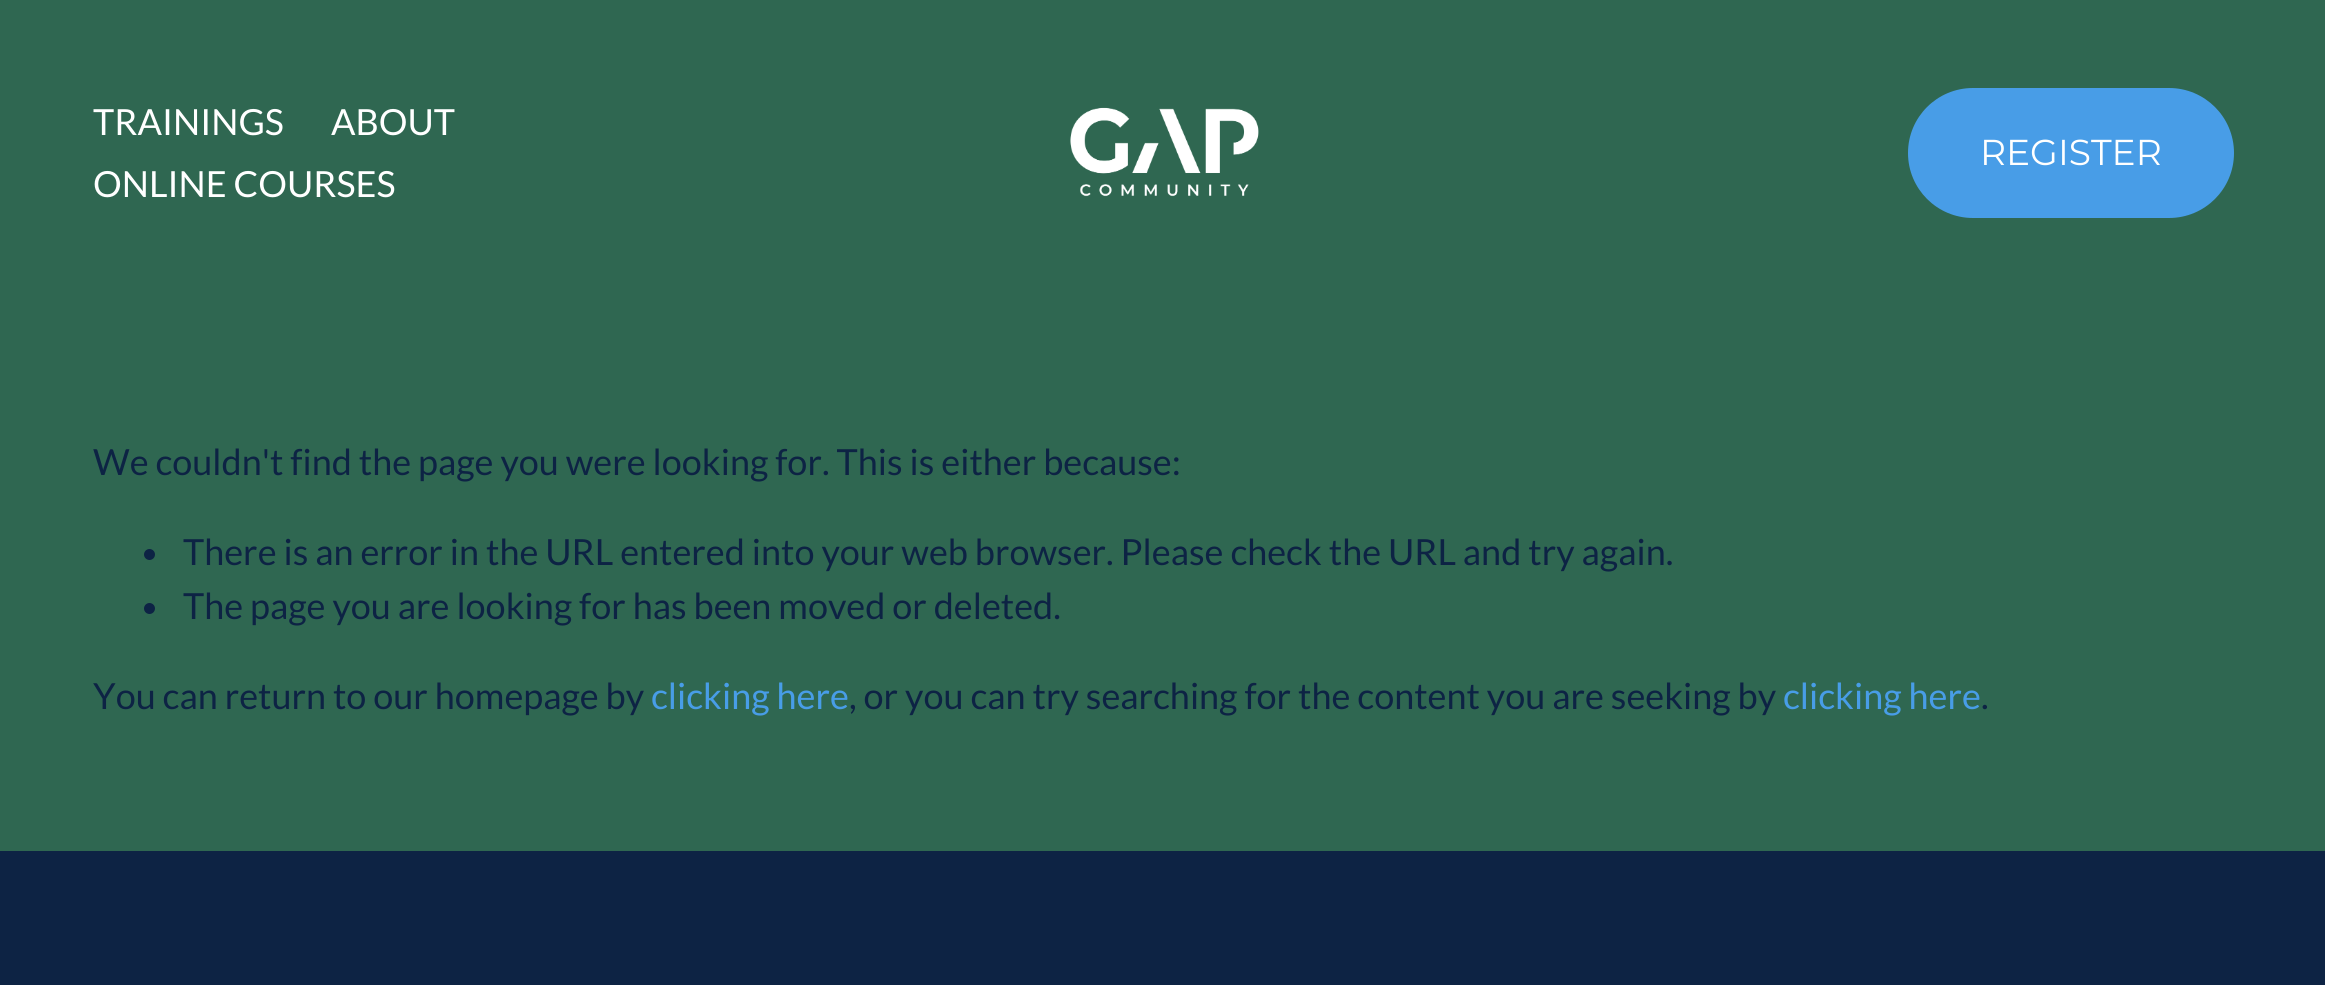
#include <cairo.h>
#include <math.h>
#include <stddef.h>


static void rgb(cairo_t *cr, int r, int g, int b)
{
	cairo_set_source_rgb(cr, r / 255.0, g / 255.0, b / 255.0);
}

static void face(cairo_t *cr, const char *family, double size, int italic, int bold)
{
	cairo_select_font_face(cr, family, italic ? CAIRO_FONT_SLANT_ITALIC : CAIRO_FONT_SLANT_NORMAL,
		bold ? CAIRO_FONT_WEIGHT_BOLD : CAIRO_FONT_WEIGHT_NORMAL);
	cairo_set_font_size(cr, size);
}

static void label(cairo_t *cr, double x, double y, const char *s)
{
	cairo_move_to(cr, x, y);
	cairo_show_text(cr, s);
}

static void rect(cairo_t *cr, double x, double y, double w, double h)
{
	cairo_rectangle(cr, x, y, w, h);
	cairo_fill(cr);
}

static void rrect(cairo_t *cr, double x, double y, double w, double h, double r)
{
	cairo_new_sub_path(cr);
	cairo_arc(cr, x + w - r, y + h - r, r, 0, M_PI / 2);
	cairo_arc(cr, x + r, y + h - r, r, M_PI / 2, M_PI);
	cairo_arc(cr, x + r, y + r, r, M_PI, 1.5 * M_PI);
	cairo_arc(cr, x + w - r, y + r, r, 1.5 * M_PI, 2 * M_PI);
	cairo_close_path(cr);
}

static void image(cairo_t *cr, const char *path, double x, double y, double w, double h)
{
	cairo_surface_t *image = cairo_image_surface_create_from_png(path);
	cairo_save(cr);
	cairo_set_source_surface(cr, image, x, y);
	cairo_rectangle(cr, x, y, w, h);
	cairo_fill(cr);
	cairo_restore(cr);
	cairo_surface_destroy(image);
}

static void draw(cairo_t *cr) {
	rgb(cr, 47, 103, 81);
	cairo_paint(cr);
	face(cr, "Lato", 36, 0, 0);
	rgb(cr, 255, 255, 255);
	label(cr, 93, 135, "TRAININGS");
	label(cr, 331, 135, "ABOUT");
	label(cr, 93, 197, "ONLINE COURSES");
	image(cr, "image0.png", 1070, 107, 189, 90);
	rgb(cr, 72, 157, 231);
	rrect(cr, 1908, 88, 326, 130, 65);
	cairo_fill(cr);
	face(cr, "Montserrat", 36, 0, 0);
	rgb(cr, 255, 255, 255);
	label(cr, 1980, 165, "REGISTER");
	face(cr, "Lato", 36, 0, 0);
	rgb(cr, 13, 35, 68);
	label(cr, 93, 475, "We couldn't find the page you were looking for. This is either because:");
	cairo_new_path(cr);
	cairo_arc(cr, 149.5, 554.5, 5.5, 0, 2 * M_PI);
	cairo_fill(cr);
	label(cr, 183, 565, "There is an error in the URL entered into your web browser. Please check the URL and try again.");
	cairo_new_path(cr);
	cairo_arc(cr, 149.5, 608.5, 5.5, 0, 2 * M_PI);
	cairo_fill(cr);
	label(cr, 183, 619, "The page you are looking for has been moved or deleted.");
	label(cr, 93, 709, "You can return to our homepage by");
	rgb(cr, 72, 157, 231);
	label(cr, 651, 709, "clicking here");
	rgb(cr, 13, 35, 68);
	label(cr, 849, 709, ", or you can try searching for the content you are seeking by");
	rgb(cr, 72, 157, 231);
	label(cr, 1783, 709, "clicking here");
	rgb(cr, 13, 35, 68);
	label(cr, 1981, 709, ".");
	rect(cr, 0, 851, 2325, 134);
}

int main(void) {
	cairo_surface_t *surface = cairo_image_surface_create(CAIRO_FORMAT_RGB24, 2325, 985);
	cairo_t *cr = cairo_create(surface);
	cairo_font_options_t *options = cairo_font_options_create();
	cairo_font_options_set_hint_metrics(options, CAIRO_HINT_METRICS_OFF);
	cairo_font_options_set_hint_style(options, CAIRO_HINT_STYLE_NONE);
	cairo_set_font_options(cr, options);
	cairo_set_miter_limit(cr, 4);
	draw(cr);
	cairo_surface_write_to_png(surface, "render.png");
	cairo_font_options_destroy(options);
	cairo_destroy(cr);
	cairo_surface_destroy(surface);
	return 0;
}
